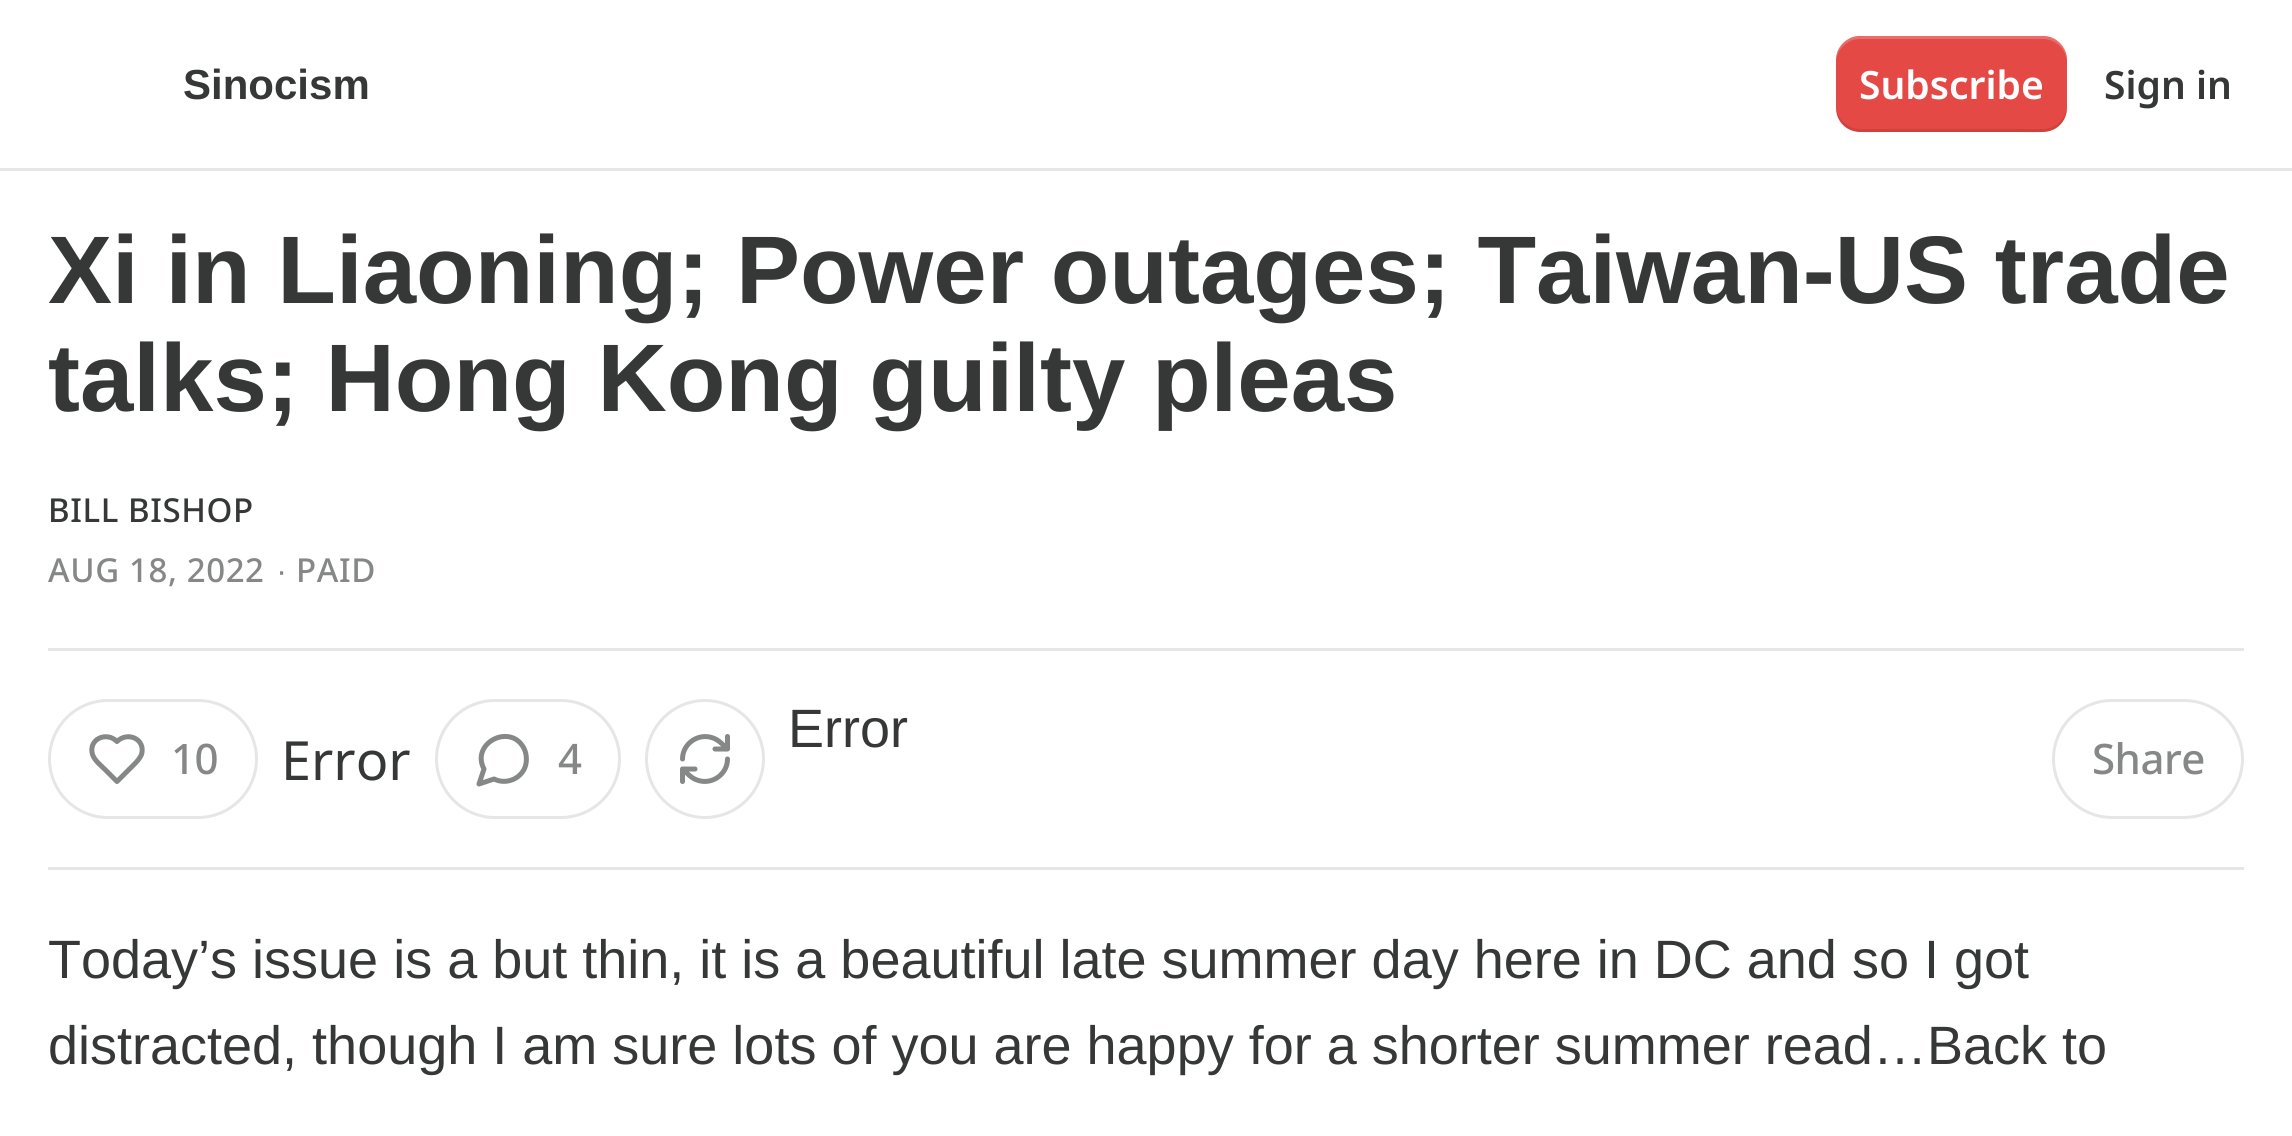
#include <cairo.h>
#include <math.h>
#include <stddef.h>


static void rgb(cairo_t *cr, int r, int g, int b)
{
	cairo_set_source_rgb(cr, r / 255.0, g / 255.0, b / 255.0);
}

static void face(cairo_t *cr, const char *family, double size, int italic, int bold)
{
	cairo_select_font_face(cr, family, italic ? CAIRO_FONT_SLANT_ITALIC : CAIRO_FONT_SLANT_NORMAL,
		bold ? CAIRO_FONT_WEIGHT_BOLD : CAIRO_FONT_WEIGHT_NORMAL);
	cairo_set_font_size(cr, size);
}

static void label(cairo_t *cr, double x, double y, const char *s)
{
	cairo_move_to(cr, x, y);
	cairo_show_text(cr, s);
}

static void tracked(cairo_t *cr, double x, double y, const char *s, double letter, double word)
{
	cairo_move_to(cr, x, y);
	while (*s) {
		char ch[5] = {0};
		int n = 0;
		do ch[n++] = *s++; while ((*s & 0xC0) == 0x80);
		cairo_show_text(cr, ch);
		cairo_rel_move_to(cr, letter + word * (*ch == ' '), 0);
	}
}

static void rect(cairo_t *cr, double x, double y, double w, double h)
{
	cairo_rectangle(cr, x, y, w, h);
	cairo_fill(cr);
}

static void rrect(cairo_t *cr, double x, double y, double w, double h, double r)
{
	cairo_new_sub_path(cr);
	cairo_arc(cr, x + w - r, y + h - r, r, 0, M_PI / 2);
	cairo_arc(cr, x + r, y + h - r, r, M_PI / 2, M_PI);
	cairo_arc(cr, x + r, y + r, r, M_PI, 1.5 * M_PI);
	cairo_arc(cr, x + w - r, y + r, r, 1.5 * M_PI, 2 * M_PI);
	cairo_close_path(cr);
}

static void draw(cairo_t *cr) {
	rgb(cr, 255, 255, 255);
	cairo_paint(cr);
	rgb(cr, 230, 230, 230);
	rect(cr, 0, 168, 2292, 3);
	face(cr, "Liberation Sans", 42, 0, 1);
	rgb(cr, 54, 55, 55);
	label(cr, 183, 99, "Sinocism");
	rgb(cr, 228, 73, 69);
	rrect(cr, 1836, 36, 231, 96, 24);
	cairo_fill(cr);
	cairo_set_source_rgba(cr, 0, 0, 0, 0.1);
	cairo_new_path(cr);
	cairo_move_to(cr, 1836, 105);
	cairo_curve_to(cr, 1836, 138, 1866, 132, 1890, 132);
	cairo_line_to(cr, 2012, 132);
	cairo_curve_to(cr, 2037, 132, 2067, 138, 2067, 105);
	cairo_curve_to(cr, 2067, 118, 2056, 129, 2043, 129);
	cairo_line_to(cr, 1860, 129);
	cairo_curve_to(cr, 1847, 129, 1836, 118, 1836, 105);
	cairo_close_path(cr);
	cairo_fill(cr);
	cairo_set_source_rgba(cr, 1, 1, 1, 0.2);
	cairo_new_path(cr);
	cairo_move_to(cr, 1860, 39);
	cairo_line_to(cr, 2043, 39);
	cairo_curve_to(cr, 2056, 39, 2067, 50, 2067, 63);
	cairo_curve_to(cr, 2067, 30, 2037, 36, 2012, 36);
	cairo_line_to(cr, 1890, 36);
	cairo_curve_to(cr, 1866, 36, 1836, 30, 1836, 63);
	cairo_curve_to(cr, 1836, 50, 1847, 39, 1860, 39);
	cairo_close_path(cr);
	cairo_fill(cr);
	face(cr, "Noto Sans SemiBold", 39, 0, 0);
	rgb(cr, 255, 255, 255);
	label(cr, 1859, 99, "Subscribe");
	rgb(cr, 54, 55, 55);
	label(cr, 2104, 99, "Sign in");
	face(cr, "Liberation Sans", 96, 0, 1);
	label(cr, 48, 303, "Xi in Liaoning; Power outages; Taiwan-US trade");
	label(cr, 48, 411, "talks; Hong Kong guilty pleas");
	face(cr, "Noto Sans Medium", 33, 0, 0);
	tracked(cr, 48, 522, "BILL BISHOP", 0.6, 0);
	rgb(cr, 134, 135, 135);
	tracked(cr, 48, 582, "AUG 18, 2022", 0.6, 0);
	face(cr, "Liberation Sans", 33, 0, 0);
	tracked(cr, 277, 582, "∙", 0.6, 0);
	face(cr, "Noto Sans Medium", 33, 0, 0);
	tracked(cr, 296, 582, "PAID", 0.6, 0);
	rgb(cr, 230, 230, 230);
	rect(cr, 48, 648, 2196, 3);
	rect(cr, 48, 867, 2196, 3);
	cairo_new_path(cr);
	cairo_arc(cr, 705, 759, 58.5, 0, 2 * M_PI);
	cairo_set_line_width(cr, 3);
	cairo_stroke(cr);
	cairo_new_path(cr);
	cairo_move_to(cr, 727.5, 736.5);
	cairo_line_to(cr, 727.5, 749);
	cairo_move_to(cr, 727.5, 749);
	cairo_line_to(cr, 715, 749);
	cairo_move_to(cr, 727.5, 749);
	cairo_curve_to(cr, 723, 745, 719, 740, 713, 738);
	cairo_curve_to(cr, 698.5, 732.5, 682.5, 743.5, 682.5, 759);
	cairo_move_to(cr, 682.5, 781.5);
	cairo_line_to(cr, 682.5, 769);
	cairo_move_to(cr, 682.5, 769);
	cairo_line_to(cr, 695, 769);
	cairo_move_to(cr, 682.5, 769);
	cairo_curve_to(cr, 687, 773, 691, 778, 697, 780);
	cairo_curve_to(cr, 711.5, 785.5, 727.5, 774.5, 727.5, 759);
	rgb(cr, 134, 135, 135);
	cairo_set_line_width(cr, 5);
	cairo_set_line_cap(cr, CAIRO_LINE_CAP_ROUND);
	cairo_set_line_join(cr, CAIRO_LINE_JOIN_ROUND);
	cairo_stroke(cr);
	face(cr, "Liberation Sans", 54, 0, 0);
	rgb(cr, 54, 55, 55);
	label(cr, 788, 747, "Error");
	rrect(cr, 49.5, 700.5, 207, 117, 58.5);
	rgb(cr, 230, 230, 230);
	cairo_set_line_width(cr, 3);
	cairo_set_line_cap(cr, CAIRO_LINE_CAP_BUTT);
	cairo_set_line_join(cr, CAIRO_LINE_JOIN_MITER);
	cairo_stroke(cr);
	cairo_new_path(cr);
	cairo_move_to(cr, 134.5, 764);
	cairo_curve_to(cr, 137.5, 761, 140, 758, 141.5, 754.5);
	cairo_curve_to(cr, 146, 739, 127.5, 731, 117, 741.5);
	cairo_curve_to(cr, 106.5, 731, 88, 739, 92.5, 754.5);
	cairo_curve_to(cr, 94.5, 760.5, 101, 765.5, 105.5, 770);
	cairo_line_to(cr, 117, 781.5);
	cairo_close_path(cr);
	rgb(cr, 134, 135, 135);
	cairo_set_line_width(cr, 5);
	cairo_set_line_cap(cr, CAIRO_LINE_CAP_ROUND);
	cairo_set_line_join(cr, CAIRO_LINE_JOIN_ROUND);
	cairo_stroke(cr);
	face(cr, "Noto Sans Medium", 42, 0, 0);
	tracked(cr, 171, 774, "10", -0.5, 0);
	face(cr, "Noto Sans", 54, 0, 0);
	rgb(cr, 54, 55, 55);
	label(cr, 281, 780, "Error");
	rrect(cr, 436.5, 700.5, 183, 117, 58.5);
	rgb(cr, 230, 230, 230);
	cairo_set_line_width(cr, 3);
	cairo_set_line_cap(cr, CAIRO_LINE_CAP_BUTT);
	cairo_set_line_join(cr, CAIRO_LINE_JOIN_MITER);
	cairo_stroke(cr);
	cairo_new_path(cr);
	cairo_move_to(cr, 494, 779);
	cairo_curve_to(cr, 505, 784.5, 519, 780, 524.5, 768.5);
	cairo_curve_to(cr, 527, 763, 527, 755.5, 524.5, 749.5);
	cairo_curve_to(cr, 512, 722, 470, 742.5, 484, 769);
	cairo_line_to(cr, 479, 784);
	cairo_close_path(cr);
	rgb(cr, 134, 135, 135);
	cairo_set_line_width(cr, 5);
	cairo_set_line_cap(cr, CAIRO_LINE_CAP_ROUND);
	cairo_set_line_join(cr, CAIRO_LINE_JOIN_ROUND);
	cairo_stroke(cr);
	face(cr, "Noto Sans Medium", 42, 0, 0);
	tracked(cr, 558, 774, "4", -0.5, 0);
	rrect(cr, 2053.5, 700.5, 189, 117, 58.5);
	rgb(cr, 230, 230, 230);
	cairo_set_line_width(cr, 3);
	cairo_set_line_cap(cr, CAIRO_LINE_CAP_BUTT);
	cairo_set_line_join(cr, CAIRO_LINE_JOIN_MITER);
	cairo_stroke(cr);
	rgb(cr, 134, 135, 135);
	tracked(cr, 2092, 774, "Share", -0.5, 0);
	face(cr, "Liberation Sans", 54, 0, 0);
	rgb(cr, 54, 55, 55);
	label(cr, 48, 978, "Today’s issue is a but thin, it is a beautiful late summer day here in DC and so I got");
	label(cr, 48, 1064, "distracted, though I am sure lots of you are happy for a shorter summer read…Back to");
}

int main(void) {
	cairo_surface_t *surface = cairo_image_surface_create(CAIRO_FORMAT_RGB24, 2292, 1136);
	cairo_t *cr = cairo_create(surface);
	cairo_font_options_t *options = cairo_font_options_create();
	cairo_font_options_set_hint_metrics(options, CAIRO_HINT_METRICS_OFF);
	cairo_font_options_set_hint_style(options, CAIRO_HINT_STYLE_NONE);
	cairo_set_font_options(cr, options);
	cairo_set_miter_limit(cr, 4);
	draw(cr);
	cairo_surface_write_to_png(surface, "render.png");
	cairo_font_options_destroy(options);
	cairo_destroy(cr);
	cairo_surface_destroy(surface);
	return 0;
}
